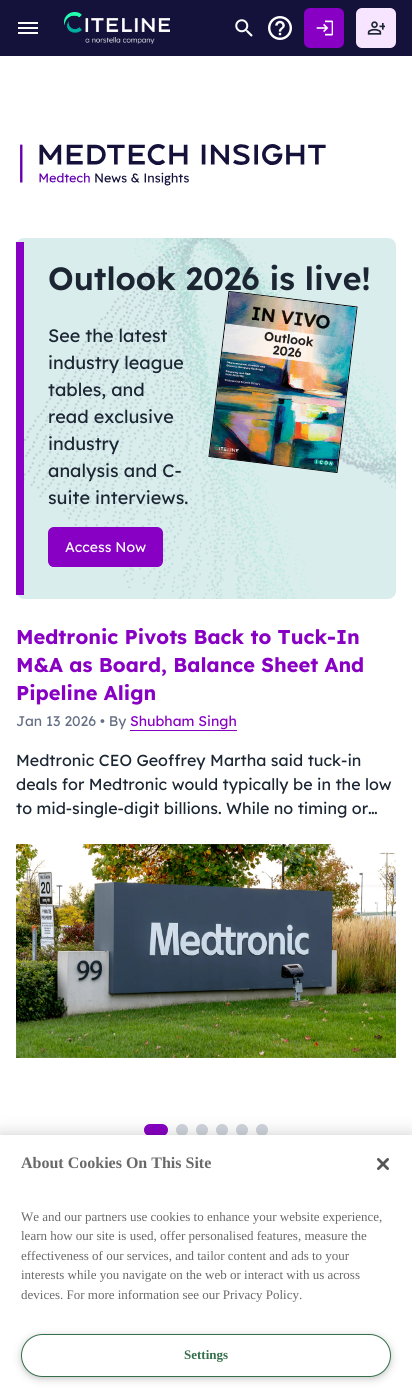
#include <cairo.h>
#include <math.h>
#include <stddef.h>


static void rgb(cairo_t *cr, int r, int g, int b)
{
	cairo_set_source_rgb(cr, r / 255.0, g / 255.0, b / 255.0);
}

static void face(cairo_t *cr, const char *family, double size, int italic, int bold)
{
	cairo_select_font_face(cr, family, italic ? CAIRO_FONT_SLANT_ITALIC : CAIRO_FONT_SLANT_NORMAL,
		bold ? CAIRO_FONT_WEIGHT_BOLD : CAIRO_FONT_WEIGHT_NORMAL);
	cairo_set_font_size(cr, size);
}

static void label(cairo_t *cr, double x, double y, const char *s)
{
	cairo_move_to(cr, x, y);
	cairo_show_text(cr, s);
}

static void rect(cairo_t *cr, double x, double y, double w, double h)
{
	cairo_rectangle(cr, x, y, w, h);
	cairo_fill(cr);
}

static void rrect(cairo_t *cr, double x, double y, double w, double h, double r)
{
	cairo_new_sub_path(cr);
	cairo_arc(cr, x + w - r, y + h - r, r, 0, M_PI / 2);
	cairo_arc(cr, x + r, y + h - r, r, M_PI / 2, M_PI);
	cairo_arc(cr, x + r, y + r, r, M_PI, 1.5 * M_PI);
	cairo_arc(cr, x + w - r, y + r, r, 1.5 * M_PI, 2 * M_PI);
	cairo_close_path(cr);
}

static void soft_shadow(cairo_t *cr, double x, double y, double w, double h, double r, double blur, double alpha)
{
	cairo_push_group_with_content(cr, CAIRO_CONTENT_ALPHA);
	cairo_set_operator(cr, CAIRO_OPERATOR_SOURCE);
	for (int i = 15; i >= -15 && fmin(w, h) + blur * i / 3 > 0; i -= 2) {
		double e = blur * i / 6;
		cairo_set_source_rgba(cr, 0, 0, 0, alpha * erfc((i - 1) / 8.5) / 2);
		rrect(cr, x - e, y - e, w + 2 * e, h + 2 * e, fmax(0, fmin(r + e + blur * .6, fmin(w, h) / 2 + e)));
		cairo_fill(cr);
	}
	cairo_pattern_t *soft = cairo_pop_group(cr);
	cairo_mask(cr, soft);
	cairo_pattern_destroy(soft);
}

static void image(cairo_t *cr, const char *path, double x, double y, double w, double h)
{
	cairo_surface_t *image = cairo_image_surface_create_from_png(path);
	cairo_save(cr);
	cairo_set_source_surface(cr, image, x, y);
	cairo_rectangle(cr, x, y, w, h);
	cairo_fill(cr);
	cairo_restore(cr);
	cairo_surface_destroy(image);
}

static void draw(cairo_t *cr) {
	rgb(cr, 255, 255, 255);
	cairo_paint(cr);
	rgb(cr, 20, 18, 59);
	rect(cr, 0, 0, 412, 56);
	image(cr, "image0.png", 18, 22, 20, 12);
	image(cr, "image1.png", 64, 12, 106, 32);
	image(cr, "image2.png", 235, 19, 18, 18);
	image(cr, "image3.png", 268, 16, 24, 24);
	rgb(cr, 135, 0, 195);
	rrect(cr, 304, 8, 40, 40, 6);
	cairo_fill(cr);
	image(cr, "image4.png", 316, 20, 17, 16);
	rgb(cr, 247, 228, 255);
	rrect(cr, 356, 8, 40, 40, 6);
	cairo_fill(cr);
	image(cr, "image5.png", 367, 21, 18, 14);
	image(cr, "image6.png", 20, 144, 306, 42);
	rgb(cr, 218, 237, 237);
	rrect(cr, 16, 238, 380, 361, 8);
	cairo_fill(cr);
	image(cr, "image7.png", 24, 238, 372, 361);
	rgb(cr, 135, 0, 195);
	rect(cr, 16, 242, 8, 353);
	face(cr, "Lexend SemiBold", 32, 0, 0);
	rgb(cr, 28, 38, 51);
	label(cr, 48, 290, "Outlook 2026 is live!");
	face(cr, "Lexend", 18, 0, 0);
	label(cr, 48, 342, "See the latest");
	label(cr, 48, 369, "industry league");
	label(cr, 48, 396, "tables, and");
	label(cr, 48, 423, "read exclusive");
	label(cr, 48, 450, "industry");
	label(cr, 48, 477, "analysis and C-");
	label(cr, 48, 504, "suite interviews.");
	cairo_new_path(cr);
	cairo_move_to(cr, 229, 291.5);
	cairo_line_to(cr, 357, 307);
	cairo_line_to(cr, 337, 472.5);
	cairo_line_to(cr, 209, 456.5);
	cairo_close_path(cr);
	rgb(cr, 0, 0, 0);
	cairo_set_line_width(cr, 1);
	cairo_stroke(cr);
	image(cr, "image8.png", 209, 291, 148, 182);
	rgb(cr, 135, 0, 195);
	rrect(cr, 48, 527, 115, 40, 6);
	cairo_fill(cr);
	cairo_new_path(cr);
	cairo_move_to(cr, 161, 565);
	cairo_line_to(cr, 157.5, 566.5);
	cairo_line_to(cr, 53.5, 566.5);
	cairo_line_to(cr, 50, 565);
	cairo_stroke(cr);
	face(cr, "Lexend", 14, 0, 0);
	rgb(cr, 255, 255, 255);
	label(cr, 65, 552, "Access Now");
	face(cr, "Lexend", 20, 0, 1);
	rgb(cr, 135, 0, 195);
	label(cr, 16, 644, "Medtronic Pivots Back to Tuck-In");
	label(cr, 16, 672, "M&A as Board, Balance Sheet And");
	label(cr, 16, 700, "Pipeline Align");
	face(cr, "Lexend", 14, 0, 0);
	rgb(cr, 102, 112, 133);
	label(cr, 16, 726, "Jan 13 2026 • By");
	rgb(cr, 135, 0, 195);
	label(cr, 130, 726, "Shubham Singh");
	rect(cr, 130, 730, 107, 1);
	face(cr, "Lexend", 16, 0, 0);
	rgb(cr, 28, 38, 51);
	label(cr, 16, 766, "Medtronic CEO Geoffrey Martha said tuck-in");
	label(cr, 16, 790, "deals for Medtronic would typically be in the low");
	label(cr, 16, 814, "to mid-single-digit billions. While no timing or…");
	image(cr, "image9.png", 16, 844, 380, 214);
	rgb(cr, 135, 0, 195);
	rrect(cr, 144, 1124, 24, 12, 6);
	cairo_fill(cr);
	rgb(cr, 208, 213, 221);
	cairo_arc(cr, 182, 1130, 6, 0, 2 * M_PI);
	cairo_fill(cr);
	cairo_arc(cr, 202, 1130, 6, 0, 2 * M_PI);
	cairo_fill(cr);
	cairo_arc(cr, 222, 1130, 6, 0, 2 * M_PI);
	cairo_fill(cr);
	cairo_arc(cr, 242, 1130, 6, 0, 2 * M_PI);
	cairo_fill(cr);
	cairo_arc(cr, 262, 1130, 6, 0, 2 * M_PI);
	cairo_fill(cr);
	rgb(cr, 0, 0, 0);
	soft_shadow(cr, 0, 1135, 412, 258, 0, 9, 0.2);
	rgb(cr, 255, 255, 255);
	rect(cr, 0, 1135, 412, 258);
	face(cr, "Liberation Serif", 16, 0, 1);
	rgb(cr, 105, 105, 105);
	label(cr, 21, 1168, "About Cookies On This Site");
	face(cr, "Liberation Serif", 13, 0, 0);
	label(cr, 21, 1221, "We and our partners use cookies to enhance your website experience,");
	label(cr, 21, 1240, "learn how our site is used, offer personalised features, measure the");
	label(cr, 21, 1260, "effectiveness of our services, and tailor content and ads to your");
	label(cr, 21, 1279, "interests while you navigate on the web or interact with us across");
	label(cr, 21, 1299, "devices. For more information see our Privacy Policy.");
	rgb(cr, 153, 153, 153);
	soft_shadow(cr, 24, 1339, 364, 37, 18.5, 5, 1);
	rgb(cr, 255, 255, 255);
	rrect(cr, 21.5, 1334.5, 369, 42, 21);
	cairo_fill_preserve(cr);
	rgb(cr, 52, 110, 74);
	cairo_stroke(cr);
	face(cr, "Liberation Serif", 13, 0, 1);
	label(cr, 184, 1359, "Settings");
	image(cr, "image10.png", 377, 1158, 12, 12);
}

int main(void) {
	cairo_surface_t *surface = cairo_image_surface_create(CAIRO_FORMAT_RGB24, 412, 1393);
	cairo_t *cr = cairo_create(surface);
	cairo_font_options_t *options = cairo_font_options_create();
	cairo_font_options_set_hint_metrics(options, CAIRO_HINT_METRICS_OFF);
	cairo_font_options_set_hint_style(options, CAIRO_HINT_STYLE_NONE);
	cairo_set_font_options(cr, options);
	cairo_set_miter_limit(cr, 4);
	draw(cr);
	cairo_surface_write_to_png(surface, "render.png");
	cairo_font_options_destroy(options);
	cairo_destroy(cr);
	cairo_surface_destroy(surface);
	return 0;
}
